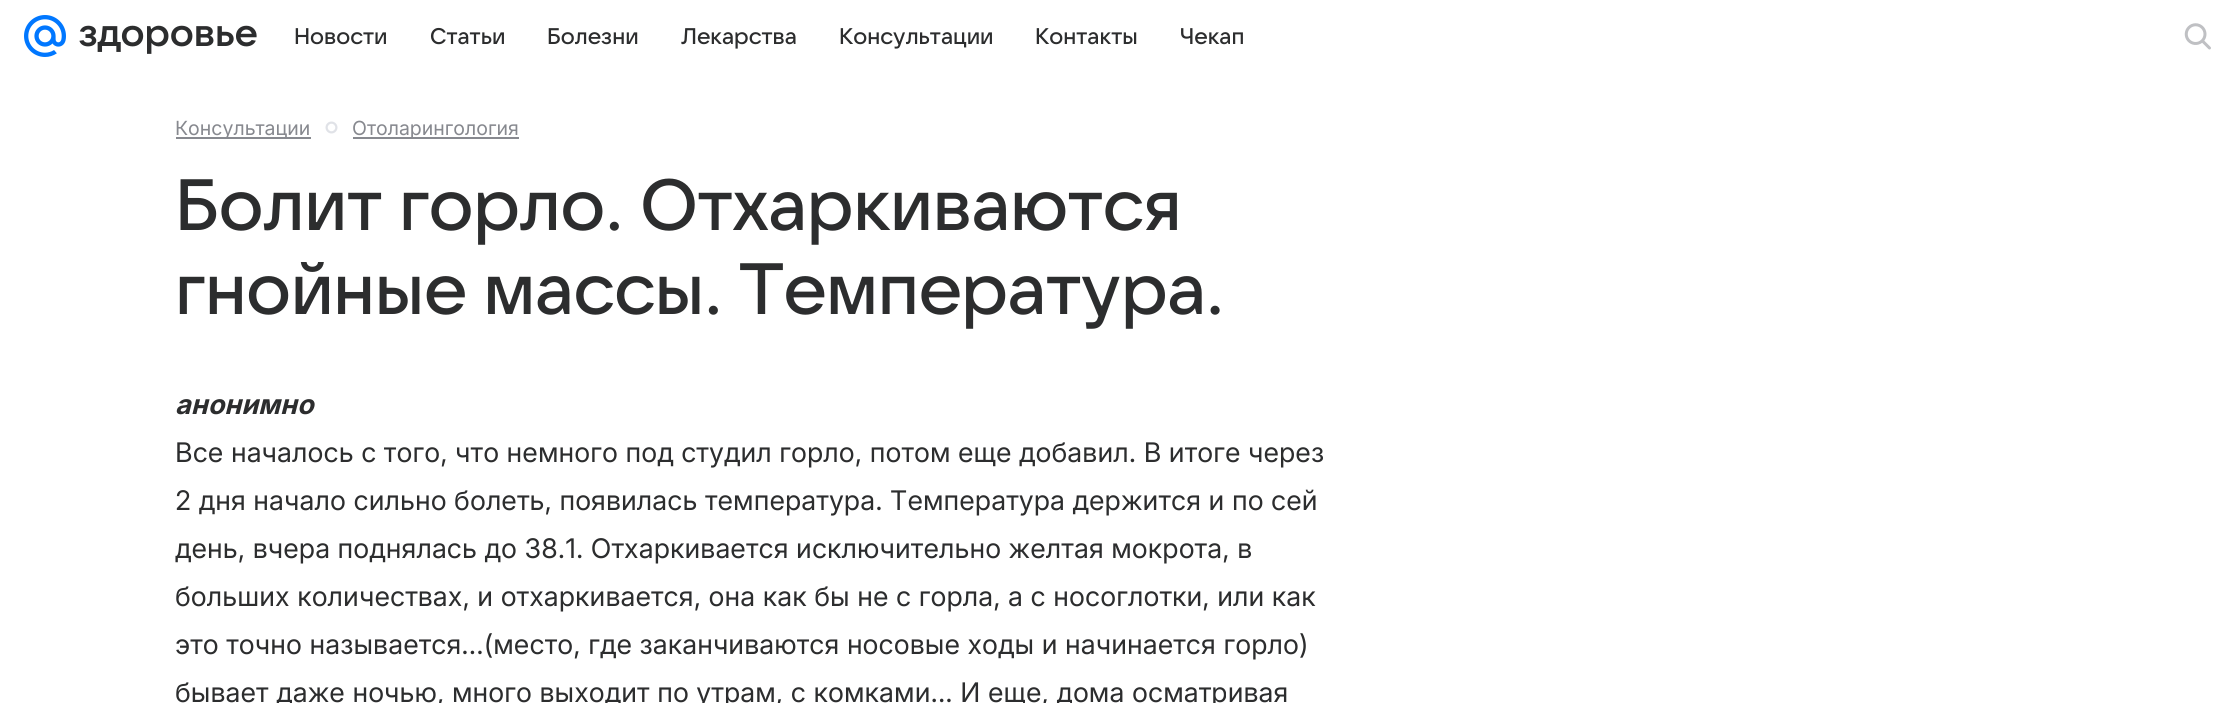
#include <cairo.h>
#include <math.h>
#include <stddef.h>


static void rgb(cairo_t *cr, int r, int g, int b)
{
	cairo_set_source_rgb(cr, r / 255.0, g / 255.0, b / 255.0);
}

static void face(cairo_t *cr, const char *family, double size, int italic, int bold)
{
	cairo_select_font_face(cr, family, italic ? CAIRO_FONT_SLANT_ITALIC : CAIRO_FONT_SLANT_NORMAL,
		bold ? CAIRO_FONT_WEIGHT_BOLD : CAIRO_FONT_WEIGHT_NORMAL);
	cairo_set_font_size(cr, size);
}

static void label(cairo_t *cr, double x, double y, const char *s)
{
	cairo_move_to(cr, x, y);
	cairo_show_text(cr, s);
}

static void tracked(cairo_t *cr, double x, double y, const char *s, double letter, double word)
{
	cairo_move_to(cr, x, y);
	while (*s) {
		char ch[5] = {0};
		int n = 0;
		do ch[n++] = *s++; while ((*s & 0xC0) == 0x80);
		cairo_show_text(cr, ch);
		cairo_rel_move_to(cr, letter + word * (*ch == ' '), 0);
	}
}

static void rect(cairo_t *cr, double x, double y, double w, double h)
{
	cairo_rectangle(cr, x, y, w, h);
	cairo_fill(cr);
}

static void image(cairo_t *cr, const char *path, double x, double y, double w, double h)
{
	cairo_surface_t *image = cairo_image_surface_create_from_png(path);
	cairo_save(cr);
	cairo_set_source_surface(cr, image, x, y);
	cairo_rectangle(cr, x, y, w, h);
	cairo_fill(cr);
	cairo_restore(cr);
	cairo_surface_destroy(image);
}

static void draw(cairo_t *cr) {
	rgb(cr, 255, 255, 255);
	cairo_paint(cr);
	image(cr, "image0.png", 24, 15, 42, 42);
	image(cr, "image1.png", 79, 25, 178, 29);
	face(cr, "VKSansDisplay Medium", 22.5, 0, 0);
	rgb(cr, 44, 45, 46);
	label(cr, 294, 44, "Новости");
	label(cr, 430, 44, "Статьи");
	label(cr, 547, 44, "Болезни");
	label(cr, 681, 44, "Лекарства");
	label(cr, 839, 44, "Консультации");
	label(cr, 1035, 44, "Контакты");
	label(cr, 1180, 44, "Чекап");
	image(cr, "image2.png", 2184, 23, 27, 27);
	rgb(cr, 135, 137, 143);
	rect(cr, 176, 137, 135, 2);
	face(cr, "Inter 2", 19.5, 0, 0);
	label(cr, 175, 135, "Консультации");
	image(cr, "image3.png", 325, 121, 13, 13);
	rect(cr, 353, 137, 166, 2);
	label(cr, 352, 135, "Отоларингология");
	face(cr, "VKSansDisplay Medium", 72, 0, 0);
	rgb(cr, 44, 45, 46);
	tracked(cr, 175, 230, "Болит горло. Отхаркиваются", -0.35, 0);
	tracked(cr, 175, 314, "гнойные массы. Температура.", -0.35, 0);
	face(cr, "Inter", 27, 1, 1);
	tracked(cr, 175, 414, "анонимно", 0.08, 0);
	face(cr, "Inter", 27, 0, 0);
	tracked(cr, 175, 462, "Все началось с того, что немного под студил горло, потом еще добавил. В итоге через", 0.08, 0);
	tracked(cr, 175, 510, "2 дня начало сильно болеть, появилась температура. Температура держится и по сей", 0.08, 0);
	tracked(cr, 175, 558, "день, вчера поднялась до 38.1. Отхаркивается исключительно желтая мокрота, в", 0.08, 0);
	tracked(cr, 175, 606, "больших количествах, и отхаркивается, она как бы не с горла, а с носоглотки, или как", 0.08, 0);
	tracked(cr, 175, 654, "это точно называется...(место, где заканчиваются носовые ходы и начинается горло)", 0.08, 0);
	tracked(cr, 175, 702, "бывает даже ночью, много выходит по утрам, с комками... И еще, дома осматривая", 0.08, 0);
}

int main(void) {
	cairo_surface_t *surface = cairo_image_surface_create(CAIRO_FORMAT_RGB24, 2239, 703);
	cairo_t *cr = cairo_create(surface);
	cairo_font_options_t *options = cairo_font_options_create();
	cairo_font_options_set_hint_metrics(options, CAIRO_HINT_METRICS_OFF);
	cairo_font_options_set_hint_style(options, CAIRO_HINT_STYLE_NONE);
	cairo_set_font_options(cr, options);
	cairo_set_miter_limit(cr, 4);
	draw(cr);
	cairo_surface_write_to_png(surface, "render.png");
	cairo_font_options_destroy(options);
	cairo_destroy(cr);
	cairo_surface_destroy(surface);
	return 0;
}
